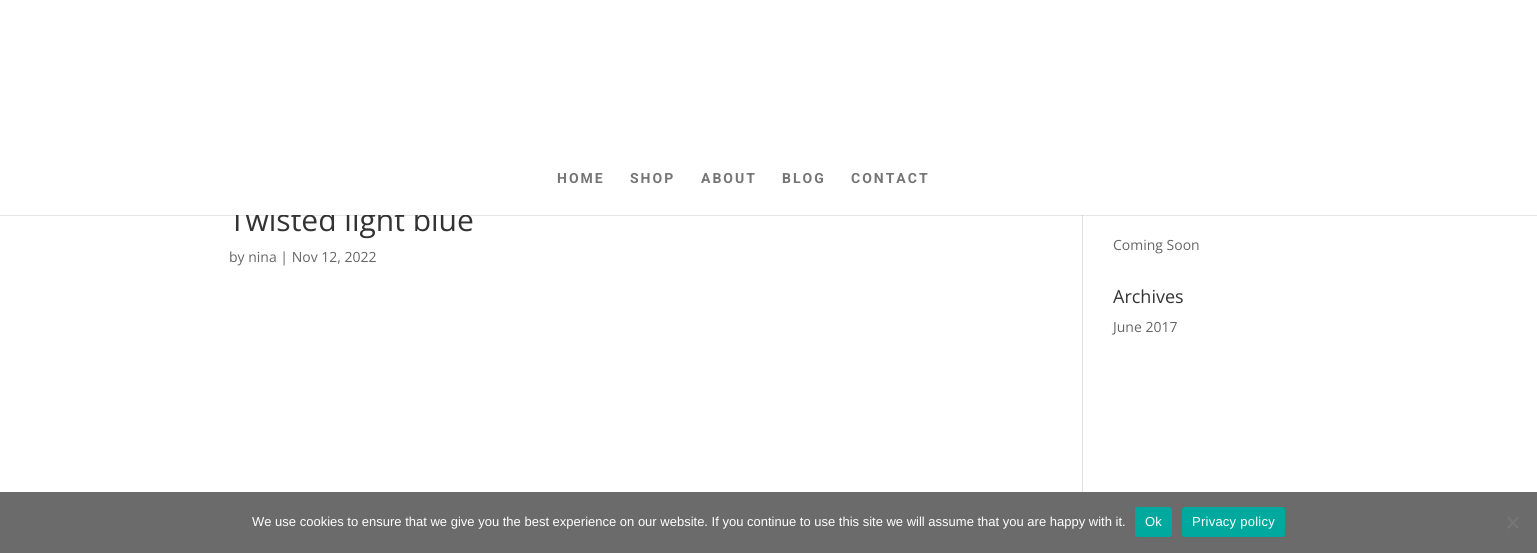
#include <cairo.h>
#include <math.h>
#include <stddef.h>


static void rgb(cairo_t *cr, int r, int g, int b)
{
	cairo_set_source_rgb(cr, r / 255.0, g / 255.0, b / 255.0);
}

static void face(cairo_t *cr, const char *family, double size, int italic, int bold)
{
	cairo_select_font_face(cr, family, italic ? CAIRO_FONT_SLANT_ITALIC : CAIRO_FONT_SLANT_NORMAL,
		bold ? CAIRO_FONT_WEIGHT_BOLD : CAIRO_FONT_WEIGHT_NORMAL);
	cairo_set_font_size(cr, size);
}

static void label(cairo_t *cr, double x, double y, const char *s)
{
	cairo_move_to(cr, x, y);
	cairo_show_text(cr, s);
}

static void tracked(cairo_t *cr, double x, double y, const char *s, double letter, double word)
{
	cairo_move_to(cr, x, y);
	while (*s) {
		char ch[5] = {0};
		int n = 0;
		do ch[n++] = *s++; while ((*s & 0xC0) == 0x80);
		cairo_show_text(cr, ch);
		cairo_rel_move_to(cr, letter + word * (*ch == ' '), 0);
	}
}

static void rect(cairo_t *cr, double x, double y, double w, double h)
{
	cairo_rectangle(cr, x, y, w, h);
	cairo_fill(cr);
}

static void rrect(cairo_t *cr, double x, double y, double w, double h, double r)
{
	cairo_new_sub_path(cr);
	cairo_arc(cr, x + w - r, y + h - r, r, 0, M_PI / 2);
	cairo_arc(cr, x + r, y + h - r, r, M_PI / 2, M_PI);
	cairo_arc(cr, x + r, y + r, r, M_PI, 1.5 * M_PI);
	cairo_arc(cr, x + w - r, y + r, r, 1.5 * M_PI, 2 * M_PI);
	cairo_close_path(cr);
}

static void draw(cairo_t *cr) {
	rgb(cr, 255, 255, 255);
	cairo_paint(cr);
	rgb(cr, 226, 226, 226);
	rect(cr, 1082, 215, 1, 277);
	cairo_set_source_rgba(cr, 0, 0, 0, 0.1);
	rect(cr, 0, 215, 1537, 1);
	face(cr, "Open Sans", 30, 0, 0);
	rgb(cr, 51, 51, 51);
	label(cr, 229, 231, "Twisted light blue");
	rgb(cr, 255, 255, 255);
	rect(cr, 228, 208, 240, 7);
	face(cr, "Roboto", 14, 0, 1);
	rgb(cr, 117, 117, 117);
	tracked(cr, 557, 183, "HOME", 2, 0);
	tracked(cr, 630, 183, "SHOP", 2, 0);
	tracked(cr, 701, 183, "ABOUT", 2, 0);
	tracked(cr, 782, 183, "BLOG", 2, 0);
	tracked(cr, 851, 183, "CONTACT", 2, 0);
	face(cr, "Open Sans", 14, 0, 0);
	rgb(cr, 102, 102, 102);
	label(cr, 229, 262, "by nina | Nov 12, 2022");
	label(cr, 1113, 250, "Coming Soon");
	face(cr, "Open Sans", 18, 0, 0);
	rgb(cr, 51, 51, 51);
	label(cr, 1113, 303, "Archives");
	face(cr, "Open Sans", 14, 0, 0);
	rgb(cr, 102, 102, 102);
	label(cr, 1113, 332, "June 2017");
	rgb(cr, 107, 107, 107);
	rect(cr, 0, 492, 1537, 61);
	face(cr, "Liberation Sans", 13, 0, 0);
	rgb(cr, 255, 255, 255);
	label(cr, 252, 526, "We use cookies to ensure that we give you the best experience on our website. If you continue to use this site we will assume that you are happy with it.");
	rgb(cr, 0, 169, 157);
	rrect(cr, 1135, 507, 37, 30, 3);
	cairo_fill(cr);
	rgb(cr, 255, 255, 255);
	tracked(cr, 1145, 526, "Ok", 0.25, 0);
	rgb(cr, 0, 169, 157);
	rrect(cr, 1182, 507, 103, 30, 3);
	cairo_fill(cr);
	rgb(cr, 255, 255, 255);
	tracked(cr, 1192, 526, "Privacy policy", 0.25, 0);
	rgb(cr, 118, 118, 118);
	cairo_new_path(cr);
	cairo_move_to(cr, 1517.5, 516.5);
	cairo_line_to(cr, 1519, 518);
	cairo_line_to(cr, 1508.5, 529);
	cairo_line_to(cr, 1507, 527.5);
	cairo_close_path(cr);
	cairo_fill(cr);
	cairo_new_path(cr);
	cairo_move_to(cr, 1507, 518);
	cairo_line_to(cr, 1508.5, 516.5);
	cairo_line_to(cr, 1519, 527.5);
	cairo_line_to(cr, 1517.5, 529);
	cairo_close_path(cr);
	cairo_fill(cr);
}

int main(void) {
	cairo_surface_t *surface = cairo_image_surface_create(CAIRO_FORMAT_RGB24, 1537, 553);
	cairo_t *cr = cairo_create(surface);
	cairo_font_options_t *options = cairo_font_options_create();
	cairo_font_options_set_hint_metrics(options, CAIRO_HINT_METRICS_OFF);
	cairo_font_options_set_hint_style(options, CAIRO_HINT_STYLE_NONE);
	cairo_set_font_options(cr, options);
	cairo_set_miter_limit(cr, 4);
	draw(cr);
	cairo_surface_write_to_png(surface, "render.png");
	cairo_font_options_destroy(options);
	cairo_destroy(cr);
	cairo_surface_destroy(surface);
	return 0;
}
